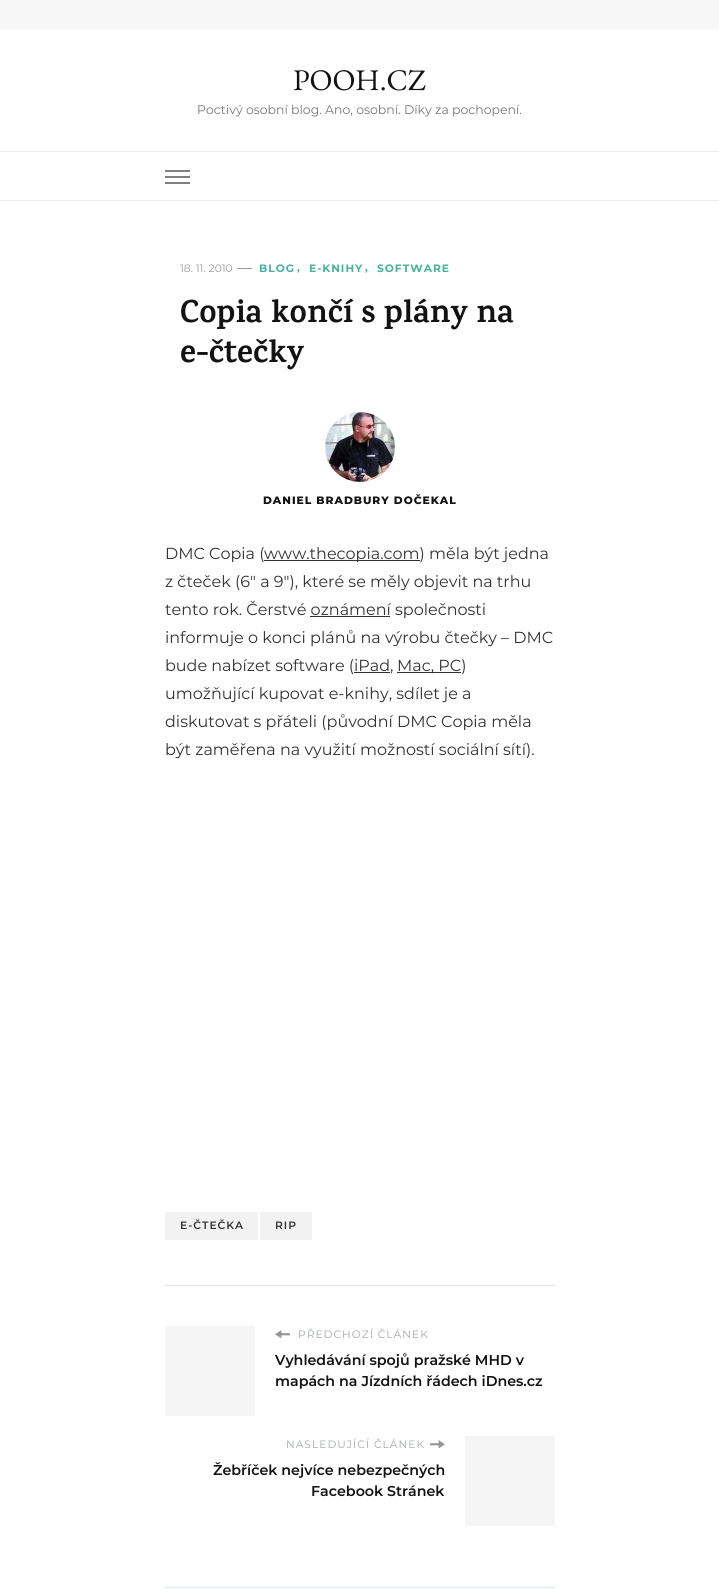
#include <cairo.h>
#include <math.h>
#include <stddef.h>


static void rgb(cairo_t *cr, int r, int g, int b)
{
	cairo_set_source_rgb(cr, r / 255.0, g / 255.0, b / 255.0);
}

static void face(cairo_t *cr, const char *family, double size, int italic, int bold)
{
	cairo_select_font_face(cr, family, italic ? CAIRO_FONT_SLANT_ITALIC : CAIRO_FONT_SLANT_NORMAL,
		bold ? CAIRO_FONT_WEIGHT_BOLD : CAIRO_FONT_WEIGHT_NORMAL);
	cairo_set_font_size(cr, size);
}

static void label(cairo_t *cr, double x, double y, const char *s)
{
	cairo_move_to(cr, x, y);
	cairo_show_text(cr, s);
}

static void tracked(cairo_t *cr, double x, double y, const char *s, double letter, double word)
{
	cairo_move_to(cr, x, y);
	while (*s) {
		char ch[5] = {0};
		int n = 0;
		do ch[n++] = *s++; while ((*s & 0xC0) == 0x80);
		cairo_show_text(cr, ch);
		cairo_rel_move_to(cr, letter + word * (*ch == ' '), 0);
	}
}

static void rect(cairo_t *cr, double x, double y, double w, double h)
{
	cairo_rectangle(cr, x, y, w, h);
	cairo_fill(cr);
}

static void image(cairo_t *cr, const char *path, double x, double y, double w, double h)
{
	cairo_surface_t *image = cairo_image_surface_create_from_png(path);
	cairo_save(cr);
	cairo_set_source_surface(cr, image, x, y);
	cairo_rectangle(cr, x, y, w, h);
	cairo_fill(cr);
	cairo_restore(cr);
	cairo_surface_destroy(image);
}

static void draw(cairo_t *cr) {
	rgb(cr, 255, 255, 255);
	cairo_paint(cr);
	rgb(cr, 247, 247, 247);
	rect(cr, 0, 0, 719, 30);
	face(cr, "EB Garamond", 30, 0, 0);
	rgb(cr, 18, 18, 18);
	label(cr, 293, 90, "POOH.CZ");
	face(cr, "Montserrat", 12.45, 0, 0);
	rgb(cr, 119, 119, 119);
	label(cr, 197, 114, "Poctivý osobní blog. Ano, osobní. Díky za pochopení.");
	rgb(cr, 237, 237, 237);
	rect(cr, 0, 151, 719, 1);
	rect(cr, 0, 200, 719, 1);
	rgb(cr, 128, 128, 128);
	rect(cr, 165, 170, 25, 2);
	rect(cr, 165, 176, 25, 2);
	rect(cr, 165, 182, 25, 2);
	face(cr, "Montserrat", 10.7, 0, 0);
	rgb(cr, 153, 153, 153);
	label(cr, 180, 272, "18. 11. 2010");
	rect(cr, 237, 268, 15, 1);
	face(cr, "Montserrat", 10.7, 0, 1);
	rgb(cr, 69, 178, 157);
	tracked(cr, 259, 272, "BLOG", 1, 0);
	tracked(cr, 297, 271, ",", 1, 0);
	tracked(cr, 309, 272, "E-KNIHY", 1, 0);
	tracked(cr, 365, 271, ",", 1, 0);
	tracked(cr, 377, 272, "SOFTWARE", 1, 0);
	face(cr, "Karma", 32, 0, 1);
	rgb(cr, 18, 18, 18);
	label(cr, 180, 322, "Copia končí s plány na");
	label(cr, 180, 362, "e-čtečky");
	image(cr, "image0.png", 325, 412, 70, 70);
	face(cr, "Montserrat ExtraBold", 10.7, 0, 0);
	tracked(cr, 263, 504, "DANIEL BRADBURY DOČEKAL", 1, 0);
	face(cr, "Montserrat", 16, 0, 0);
	rgb(cr, 51, 51, 51);
	label(cr, 165, 559, "DMC Copia (");
	rect(cr, 264, 560, 156, 1);
	label(cr, 264, 559, "www.thecopia.com) měla být jedna");
	label(cr, 165, 587, "z čteček (6″ a 9″), které se měly objevit na trhu");
	label(cr, 165, 615, "tento rok. Čerstvé oznámení společnosti");
	rect(cr, 310, 616, 80, 1);
	label(cr, 165, 643, "informuje o konci plánů na výrobu čtečky – DMC");
	label(cr, 165, 671, "bude nabízet software (iPad,");
	rect(cr, 397, 672, 64, 1);
	label(cr, 397, 671, "Mac, PC)");
	rect(cr, 354, 672, 36, 1);
	label(cr, 165, 699, "umožňující kupovat e-knihy, sdílet je a");
	label(cr, 165, 727, "diskutovat s přáteli (původní DMC Copia měla");
	label(cr, 165, 755, "být zaměřena na využití možností sociální sítí).");
	rgb(cr, 242, 242, 242);
	rect(cr, 165, 1212, 93, 28);
	face(cr, "Montserrat SemiBold", 10.7, 0, 0);
	rgb(cr, 51, 51, 51);
	tracked(cr, 180, 1229, "E-ČTEČKA", 1, 0);
	rgb(cr, 242, 242, 242);
	rect(cr, 260, 1212, 52, 28);
	rgb(cr, 51, 51, 51);
	tracked(cr, 275, 1229, "RIP", 1, 0);
	rgb(cr, 230, 230, 230);
	rect(cr, 165, 1285, 390, 1);
	rgb(cr, 245, 245, 245);
	rect(cr, 165, 1326, 90, 90);
	image(cr, "image1.png", 275, 1330, 15, 8);
	face(cr, "Montserrat", 10.7, 0, 0);
	rgb(cr, 165, 168, 178);
	tracked(cr, 298, 1338, "PŘEDCHOZÍ ČLÁNEK", 1, 0);
	face(cr, "Montserrat SemiBold", 14.25, 0, 0);
	rgb(cr, 18, 18, 18);
	label(cr, 275, 1365, "Vyhledávání spojů pražské MHD v");
	label(cr, 275, 1386, "mapách na Jízdních řádech iDnes.cz");
	face(cr, "Montserrat", 10.7, 0, 0);
	rgb(cr, 165, 168, 178);
	tracked(cr, 286, 1448, "NASLEDUJÍCÍ ČLÁNEK", 1, 0);
	image(cr, "image2.png", 430, 1440, 15, 8);
	face(cr, "Montserrat SemiBold", 14.25, 0, 0);
	rgb(cr, 18, 18, 18);
	label(cr, 213, 1475, "Žebříček nejvíce nebezpečných");
	label(cr, 311, 1496, "Facebook Stránek");
	rgb(cr, 245, 245, 245);
	rect(cr, 465, 1436, 90, 90);
	rgb(cr, 236, 247, 245);
	rect(cr, 165, 1586, 390, 3);
}

int main(void) {
	cairo_surface_t *surface = cairo_image_surface_create(CAIRO_FORMAT_RGB24, 719, 1589);
	cairo_t *cr = cairo_create(surface);
	cairo_font_options_t *options = cairo_font_options_create();
	cairo_font_options_set_hint_metrics(options, CAIRO_HINT_METRICS_OFF);
	cairo_font_options_set_hint_style(options, CAIRO_HINT_STYLE_NONE);
	cairo_set_font_options(cr, options);
	cairo_set_miter_limit(cr, 4);
	draw(cr);
	cairo_surface_write_to_png(surface, "render.png");
	cairo_font_options_destroy(options);
	cairo_destroy(cr);
	cairo_surface_destroy(surface);
	return 0;
}
